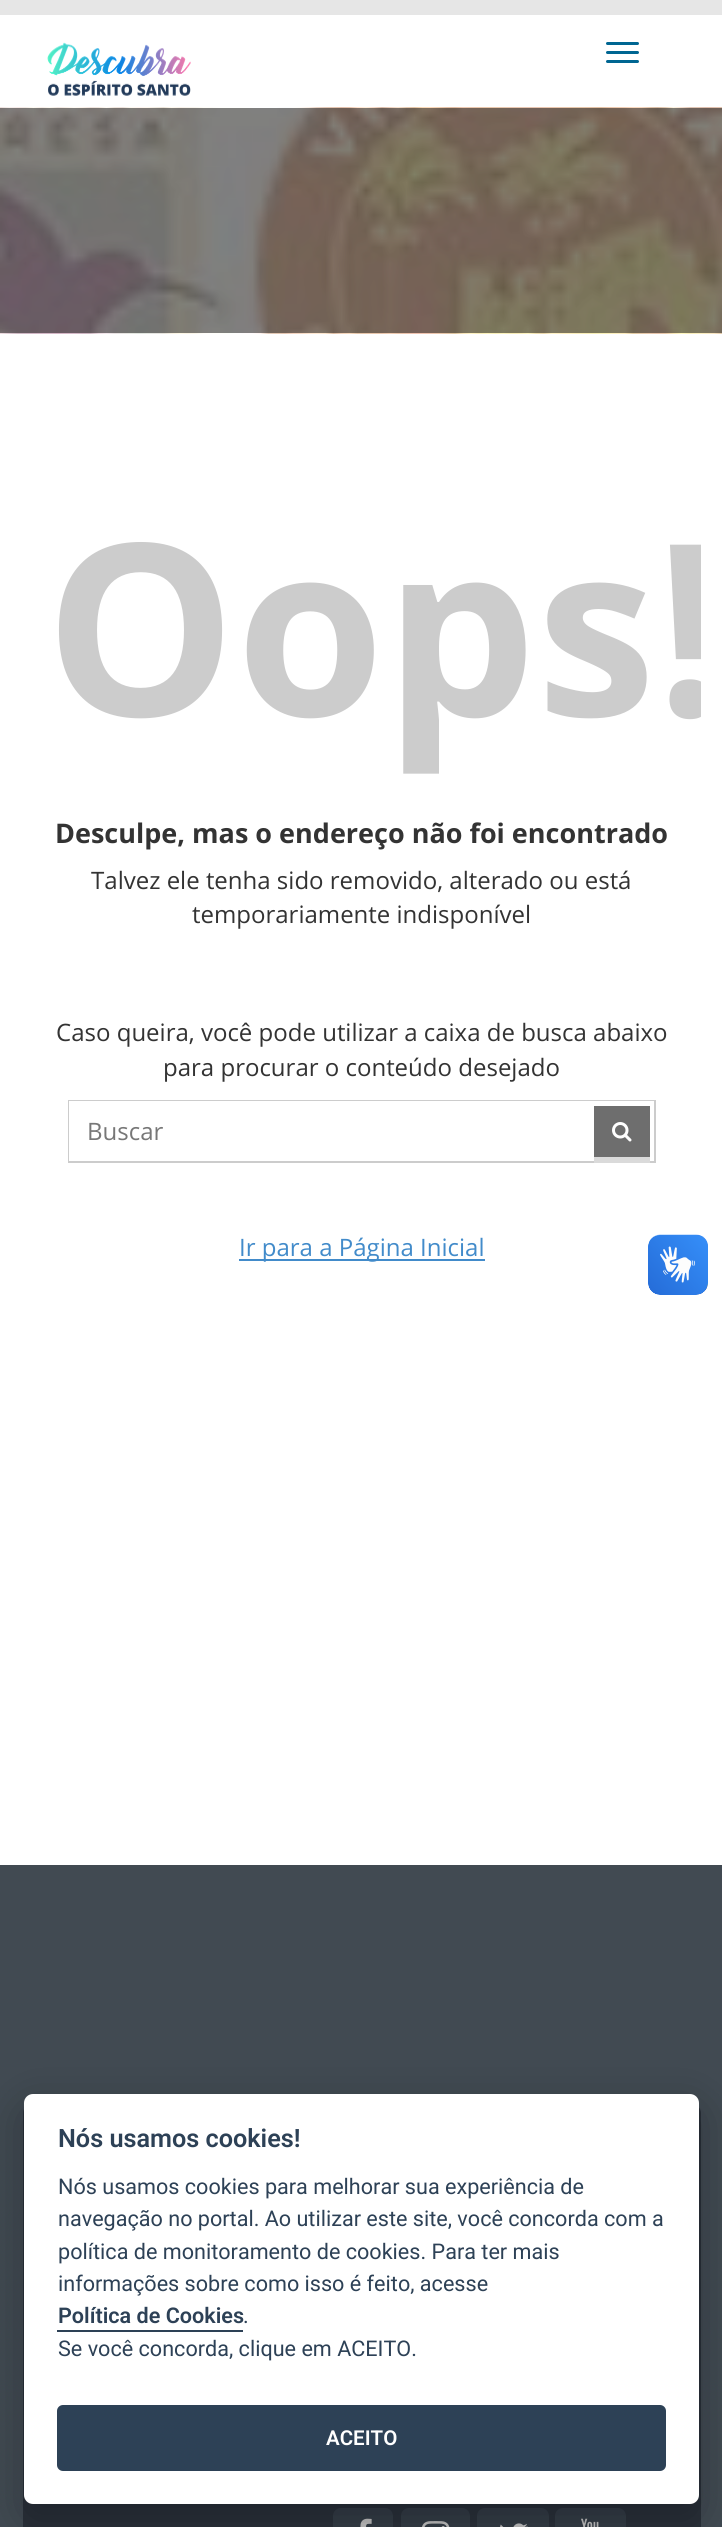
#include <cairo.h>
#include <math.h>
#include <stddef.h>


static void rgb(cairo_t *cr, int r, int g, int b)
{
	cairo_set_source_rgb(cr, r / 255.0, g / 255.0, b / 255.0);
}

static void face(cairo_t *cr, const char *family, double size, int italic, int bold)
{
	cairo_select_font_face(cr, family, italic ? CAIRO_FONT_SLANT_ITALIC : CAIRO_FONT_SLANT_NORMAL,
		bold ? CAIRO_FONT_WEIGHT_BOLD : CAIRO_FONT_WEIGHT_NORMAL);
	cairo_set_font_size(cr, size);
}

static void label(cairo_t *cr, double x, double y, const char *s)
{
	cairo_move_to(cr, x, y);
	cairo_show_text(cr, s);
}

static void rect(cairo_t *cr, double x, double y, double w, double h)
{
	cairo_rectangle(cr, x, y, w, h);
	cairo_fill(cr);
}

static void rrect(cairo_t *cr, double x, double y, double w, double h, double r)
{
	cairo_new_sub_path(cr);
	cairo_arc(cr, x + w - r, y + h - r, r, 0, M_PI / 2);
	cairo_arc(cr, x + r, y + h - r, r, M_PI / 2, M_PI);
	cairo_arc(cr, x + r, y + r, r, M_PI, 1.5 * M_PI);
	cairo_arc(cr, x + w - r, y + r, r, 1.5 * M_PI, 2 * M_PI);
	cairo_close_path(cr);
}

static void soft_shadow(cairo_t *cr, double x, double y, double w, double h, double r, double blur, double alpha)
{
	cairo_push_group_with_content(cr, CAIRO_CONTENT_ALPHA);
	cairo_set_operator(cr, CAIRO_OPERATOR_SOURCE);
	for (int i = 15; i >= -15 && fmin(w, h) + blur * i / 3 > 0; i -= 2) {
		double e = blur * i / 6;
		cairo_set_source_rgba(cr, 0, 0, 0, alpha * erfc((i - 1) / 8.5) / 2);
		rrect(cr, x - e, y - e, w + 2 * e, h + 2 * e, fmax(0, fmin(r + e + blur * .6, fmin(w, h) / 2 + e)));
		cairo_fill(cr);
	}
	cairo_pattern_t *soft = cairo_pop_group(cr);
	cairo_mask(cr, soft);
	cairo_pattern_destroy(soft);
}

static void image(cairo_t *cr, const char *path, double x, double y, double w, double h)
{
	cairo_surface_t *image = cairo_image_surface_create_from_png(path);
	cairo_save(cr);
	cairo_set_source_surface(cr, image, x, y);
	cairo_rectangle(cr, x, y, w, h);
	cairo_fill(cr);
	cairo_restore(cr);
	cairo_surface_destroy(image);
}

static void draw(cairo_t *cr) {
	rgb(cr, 255, 255, 255);
	cairo_paint(cr);
	rgb(cr, 230, 230, 230);
	rect(cr, 0, 0, 722, 15);
	image(cr, "image0.png", 47, 42, 144, 54);
	rgb(cr, 0, 102, 146);
	rrect(cr, 606, 42, 33, 3, 1.5);
	cairo_fill(cr);
	rrect(cr, 606, 51, 33, 3, 1.5);
	cairo_fill(cr);
	rrect(cr, 606, 60, 33, 3, 1.5);
	cairo_fill(cr);
	image(cr, "image1.png", 0, 107, 722, 227);
	cairo_save(cr);
	cairo_rectangle(cr, 23, 365, 678, 1134);
	cairo_clip(cr);
	face(cr, "Open Sans", 240, 0, 1);
	rgb(cr, 204, 204, 204);
	label(cr, 45, 716, "Oops!");
	cairo_restore(cr);
	face(cr, "Open Sans", 27, 0, 1);
	rgb(cr, 51, 51, 51);
	label(cr, 55, 843, "Desculpe, mas o endereço não foi encontrado");
	face(cr, "Open Sans", 24, 0, 0);
	label(cr, 91, 889, "Talvez ele tenha sido removido, alterado ou está");
	label(cr, 192, 923, "temporariamente indisponível");
	label(cr, 56, 1041, "Caso queira, você pode utilizar a caixa de busca abaixo");
	label(cr, 163, 1076, "para procurar o conteúdo desejado");
	cairo_rectangle(cr, 69, 1101, 586, 61);
	rgb(cr, 204, 204, 204);
	cairo_stroke(cr);
	rgb(cr, 255, 255, 255);
	rect(cr, 69, 1101, 521, 60);
	rgb(cr, 119, 119, 119);
	label(cr, 87, 1140, "Buscar");
	rgb(cr, 255, 255, 255);
	rect(cr, 590, 1101, 64, 1);
	rgb(cr, 218, 218, 218);
	cairo_new_path(cr);
	cairo_move_to(cr, 594, 1156);
	cairo_line_to(cr, 594, 1163);
	cairo_line_to(cr, 650, 1163);
	cairo_line_to(cr, 650, 1112);
	cairo_line_to(cr, 650, 1156);
	cairo_close_path(cr);
	cairo_fill(cr);
	rgb(cr, 110, 110, 110);
	rect(cr, 594, 1106, 56, 51);
	image(cr, "image2.png", 612, 1122, 20, 20);
	rgb(cr, 66, 139, 202);
	rect(cr, 239, 1259, 246, 2);
	label(cr, 239, 1256, "Ir para a Página Inicial");
	rgb(cr, 65, 74, 82);
	rect(cr, 0, 1865, 722, 662);
	rgb(cr, 41, 48, 57);
	cairo_new_path(cr);
	cairo_move_to(cr, 31, 2105);
	cairo_line_to(cr, 693, 2105);
	cairo_curve_to(cr, 697.5, 2105, 701, 2108.5, 701, 2113);
	cairo_line_to(cr, 701, 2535);
	cairo_line_to(cr, 23, 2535);
	cairo_line_to(cr, 23, 2113);
	cairo_curve_to(cr, 23, 2108.5, 26.5, 2105, 31, 2105);
	cairo_close_path(cr);
	cairo_fill(cr);
	rgb(cr, 51, 60, 69);
	rrect(cr, 333, 2508, 60, 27, 8);
	cairo_fill(cr);
	image(cr, "image3.png", 360, 2518, 12, 9);
	rrect(cr, 401, 2508, 69, 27, 8);
	cairo_fill(cr);
	image(cr, "image4.png", 422, 2521, 28, 6);
	rrect(cr, 477, 2508, 72, 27, 8);
	cairo_fill(cr);
	image(cr, "image5.png", 500, 2523, 28, 4);
	rrect(cr, 555, 2508, 71, 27, 8);
	cairo_fill(cr);
	image(cr, "image6.png", 581, 2518, 18, 9);
	image(cr, "image7.png", 648, 1234, 60, 61);
	image(cr, "image8.png", 648, 1235, 60, 60);
	rgb(cr, 2, 2, 3);
	soft_shadow(cr, 24, 2109, 675, 410, 9, 22.5, 0.28);
	rgb(cr, 255, 255, 255);
	rrect(cr, 24, 2094, 675, 410, 9);
	cairo_fill(cr);
	face(cr, "Roboto SemiBold", 25.25, 0, 0);
	rgb(cr, 45, 65, 86);
	label(cr, 58, 2147, "Nós usamos cookies!");
	face(cr, "Roboto", 21.6, 0, 0);
	label(cr, 58, 2194, "Nós usamos cookies para melhorar sua experiência de");
	label(cr, 58, 2226, "navegação no portal. Ao utilizar este site, você concorda com a");
	label(cr, 58, 2259, "política de monitoramento de cookies. Para ter mais");
	label(cr, 58, 2291, "informações sobre como isso é feito, acesse");
	face(cr, "Roboto SemiBold", 21.6, 0, 0);
	label(cr, 58, 2323, "Política de Cookies");
	rect(cr, 57, 2330, 186, 2);
	face(cr, "Roboto", 21.6, 0, 0);
	label(cr, 243, 2323, ".");
	label(cr, 58, 2356, "Se você concorda, clique em ACEITO.");
	rrect(cr, 57, 2405, 609, 66, 6);
	cairo_fill(cr);
	face(cr, "Roboto SemiBold", 20.5, 0, 0);
	rgb(cr, 255, 255, 255);
	label(cr, 326, 2445, "ACEITO");
}

int main(void) {
	cairo_surface_t *surface = cairo_image_surface_create(CAIRO_FORMAT_RGB24, 722, 2527);
	cairo_t *cr = cairo_create(surface);
	cairo_font_options_t *options = cairo_font_options_create();
	cairo_font_options_set_hint_metrics(options, CAIRO_HINT_METRICS_OFF);
	cairo_font_options_set_hint_style(options, CAIRO_HINT_STYLE_NONE);
	cairo_set_font_options(cr, options);
	cairo_set_miter_limit(cr, 4);
	draw(cr);
	cairo_surface_write_to_png(surface, "render.png");
	cairo_font_options_destroy(options);
	cairo_destroy(cr);
	cairo_surface_destroy(surface);
	return 0;
}
